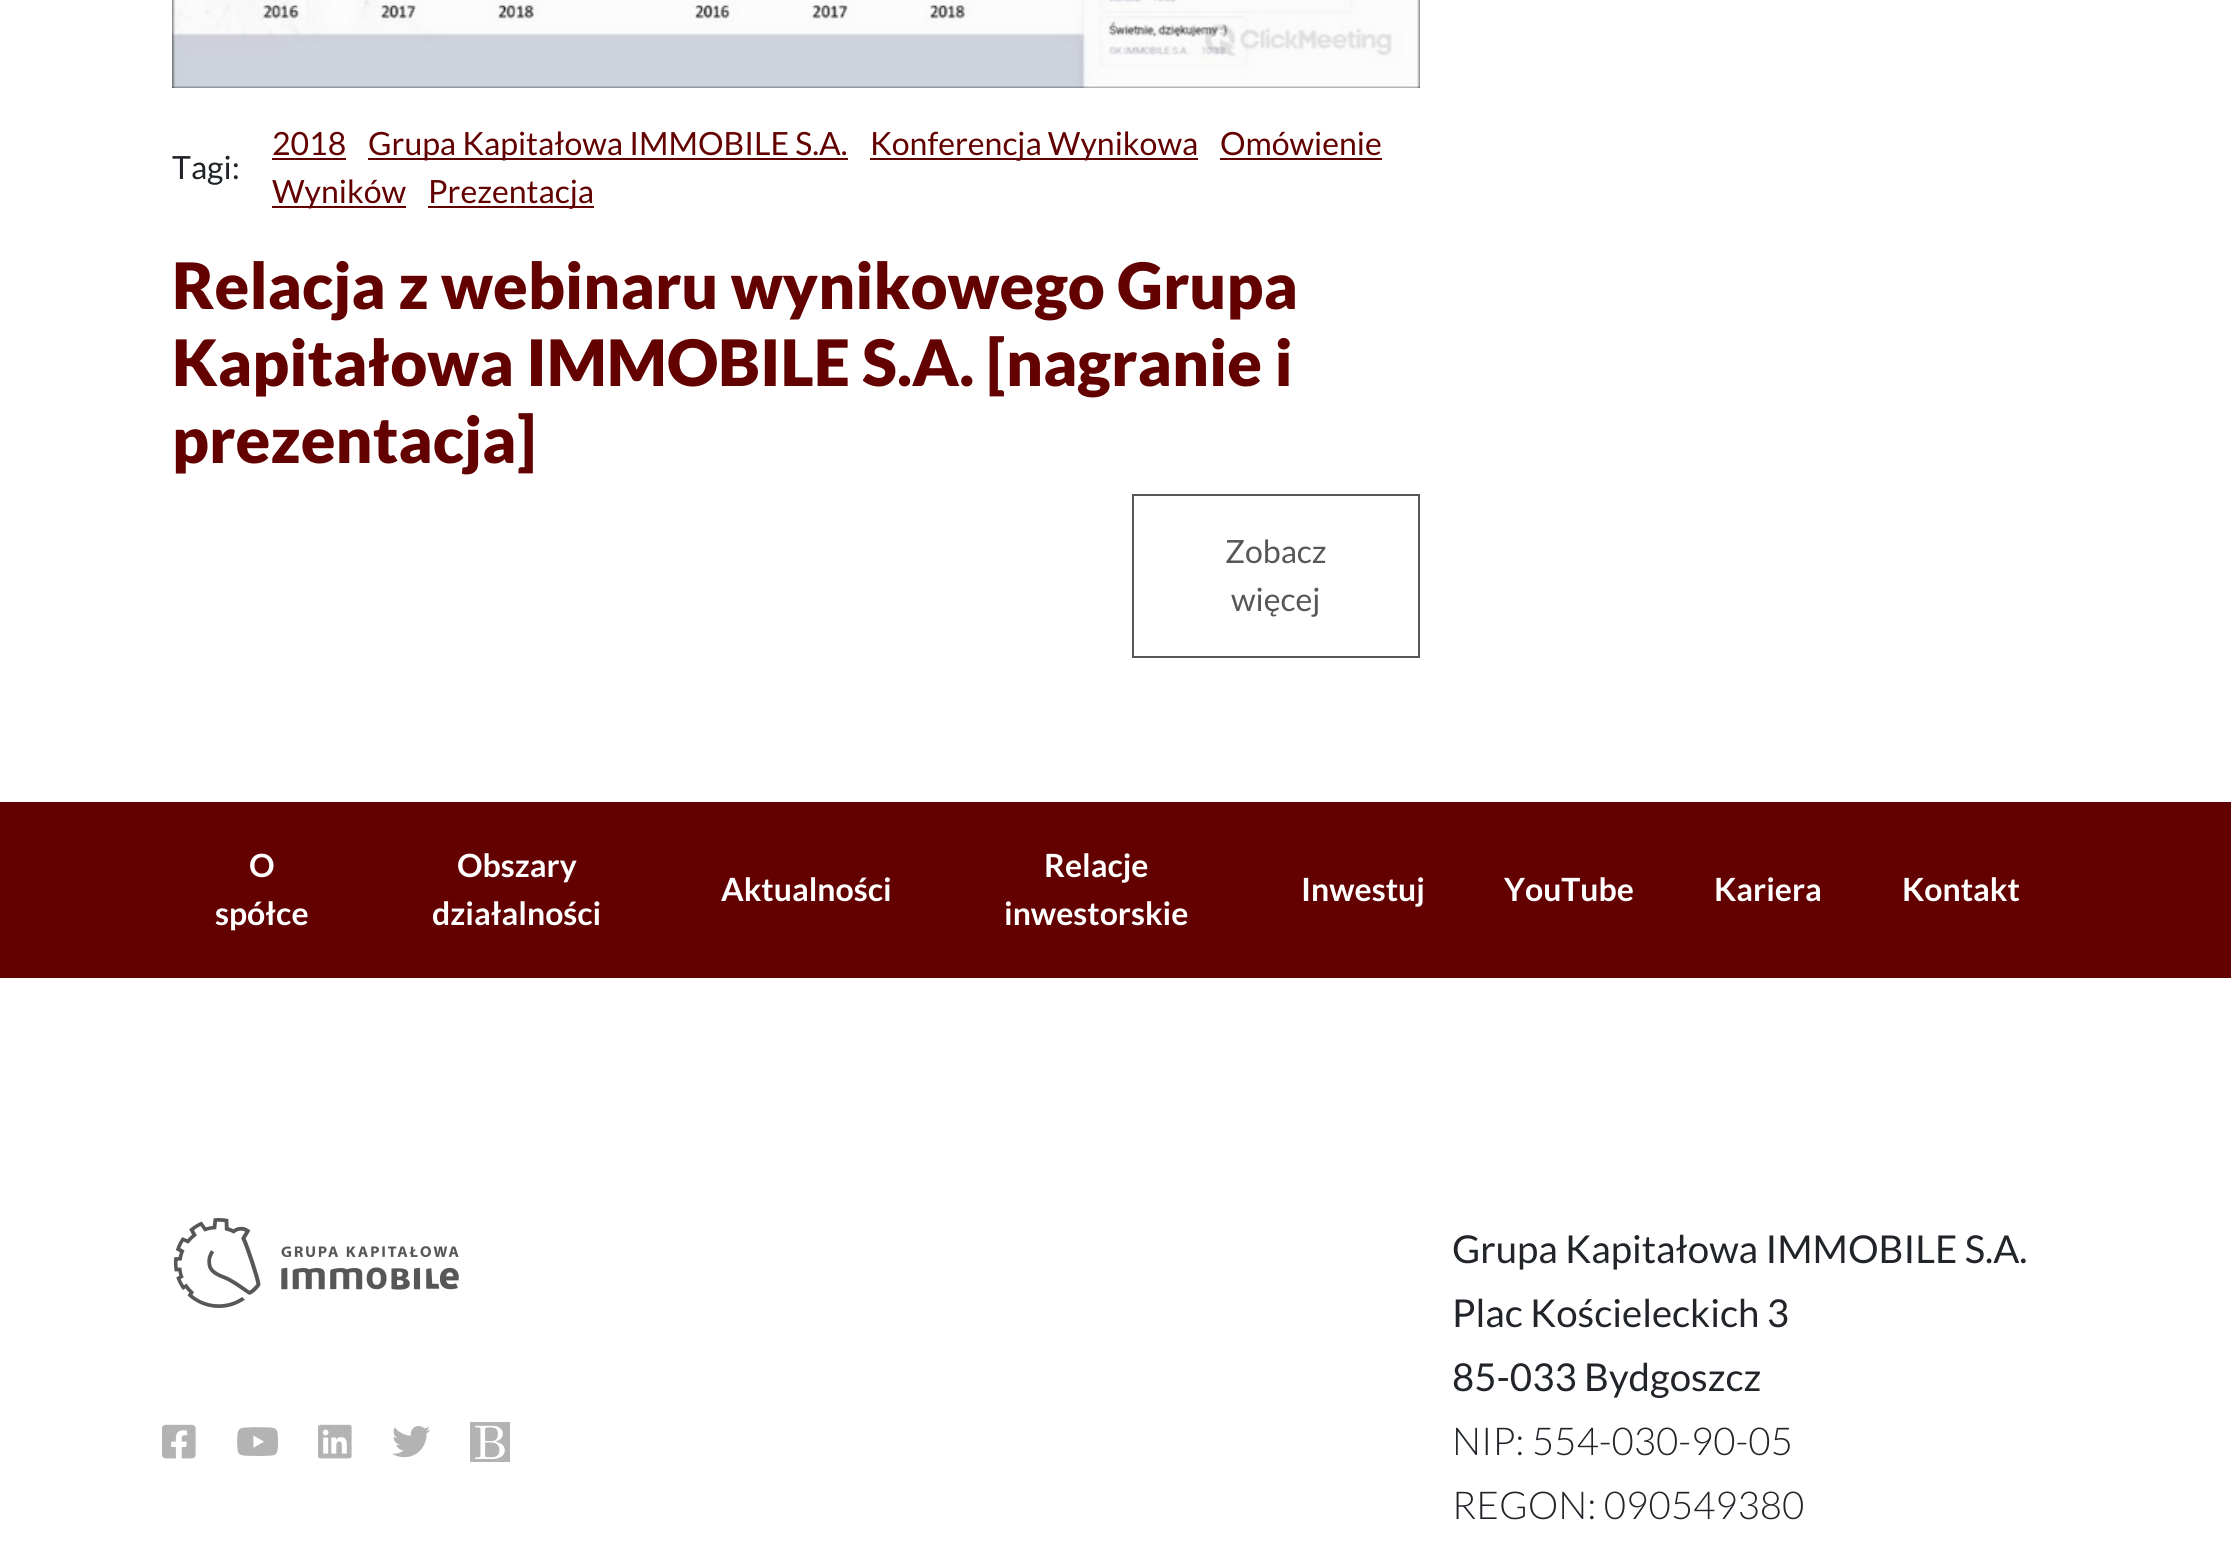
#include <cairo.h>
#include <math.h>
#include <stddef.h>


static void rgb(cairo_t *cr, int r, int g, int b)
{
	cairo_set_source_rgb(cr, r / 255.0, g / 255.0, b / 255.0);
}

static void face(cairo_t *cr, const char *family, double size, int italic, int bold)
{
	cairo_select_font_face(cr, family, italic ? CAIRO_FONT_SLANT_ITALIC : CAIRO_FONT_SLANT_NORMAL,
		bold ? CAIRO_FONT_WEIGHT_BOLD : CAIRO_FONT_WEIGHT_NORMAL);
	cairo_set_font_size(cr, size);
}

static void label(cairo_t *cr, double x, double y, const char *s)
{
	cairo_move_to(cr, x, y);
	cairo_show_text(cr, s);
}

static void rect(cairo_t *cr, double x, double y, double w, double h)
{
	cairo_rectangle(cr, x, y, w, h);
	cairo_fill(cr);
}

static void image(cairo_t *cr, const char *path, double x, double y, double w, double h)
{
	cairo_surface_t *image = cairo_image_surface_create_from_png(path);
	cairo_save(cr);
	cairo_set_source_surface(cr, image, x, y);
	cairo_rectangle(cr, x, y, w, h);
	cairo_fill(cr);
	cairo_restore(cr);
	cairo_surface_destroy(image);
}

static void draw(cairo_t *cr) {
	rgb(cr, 255, 255, 255);
	cairo_paint(cr);
	image(cr, "image0.png", 172, 0, 1248, 88);
	face(cr, "Lato", 32, 0, 0);
	rgb(cr, 33, 37, 41);
	label(cr, 172, 179, "Tagi:");
	rgb(cr, 98, 1, 0);
	label(cr, 272, 155, "2018");
	rect(cr, 272, 158, 74, 2);
	rect(cr, 368, 158, 480, 2);
	label(cr, 368, 155, "Grupa Kapitałowa IMMOBILE S.A.");
	rect(cr, 870, 158, 328, 2);
	label(cr, 870, 155, "Konferencja Wynikowa");
	label(cr, 1220, 155, "Omówienie");
	rect(cr, 1220, 158, 162, 2);
	rect(cr, 272, 206, 134, 2);
	label(cr, 272, 203, "Wyników");
	rect(cr, 428, 206, 166, 2);
	label(cr, 428, 203, "Prezentacja");
	face(cr, "Lato Black", 64, 0, 0);
	label(cr, 172, 309, "Relacja z webinaru wynikowego Grupa");
	label(cr, 172, 386, "Kapitałowa IMMOBILE S.A. [nagranie i");
	label(cr, 172, 463, "prezentacja]");
	cairo_rectangle(cr, 1133, 495, 286, 162);
	rgb(cr, 86, 87, 87);
	cairo_stroke(cr);
	face(cr, "Lato", 32, 0, 0);
	label(cr, 1225, 563, "Zobacz");
	label(cr, 1231, 611, "więcej");
	rgb(cr, 98, 1, 0);
	rect(cr, 0, 802, 2231, 176);
	face(cr, "Lato", 32, 0, 1);
	rgb(cr, 255, 255, 255);
	label(cr, 249, 877, "O");
	label(cr, 215, 925, "spółce");
	label(cr, 457, 877, "Obszary");
	label(cr, 432, 925, "działalności");
	label(cr, 721, 901, "Aktualności");
	label(cr, 1044, 877, "Relacje");
	label(cr, 1004, 925, "inwestorskie");
	label(cr, 1301, 901, "Inwestuj");
	label(cr, 1504, 901, "YouTube");
	label(cr, 1714, 901, "Kariera");
	label(cr, 1902, 901, "Kontakt");
	image(cr, "image1.png", 173, 1218, 286, 90);
	image(cr, "image2.png", 162, 1424, 34, 35);
	image(cr, "image3.png", 237, 1427, 41, 29);
	image(cr, "image4.png", 318, 1424, 34, 35);
	image(cr, "image5.png", 392, 1426, 38, 32);
	image(cr, "image6.png", 470, 1422, 40, 40);
	face(cr, "Lato", 38.4, 0, 0);
	rgb(cr, 33, 37, 41);
	label(cr, 1452, 1263, "Grupa Kapitałowa IMMOBILE S.A.");
	label(cr, 1452, 1327, "Plac Kościeleckich 3");
	label(cr, 1452, 1391, "85-033 Bydgoszcz");
	face(cr, "Lato Light", 38.4, 0, 0);
	label(cr, 1452, 1455, "NIP: 554-030-90-05");
	label(cr, 1452, 1519, "REGON: 090549380");
}

int main(void) {
	cairo_surface_t *surface = cairo_image_surface_create(CAIRO_FORMAT_RGB24, 2231, 1550);
	cairo_t *cr = cairo_create(surface);
	cairo_font_options_t *options = cairo_font_options_create();
	cairo_font_options_set_hint_metrics(options, CAIRO_HINT_METRICS_OFF);
	cairo_font_options_set_hint_style(options, CAIRO_HINT_STYLE_NONE);
	cairo_set_font_options(cr, options);
	cairo_set_miter_limit(cr, 4);
	draw(cr);
	cairo_surface_write_to_png(surface, "render.png");
	cairo_font_options_destroy(options);
	cairo_destroy(cr);
	cairo_surface_destroy(surface);
	return 0;
}
